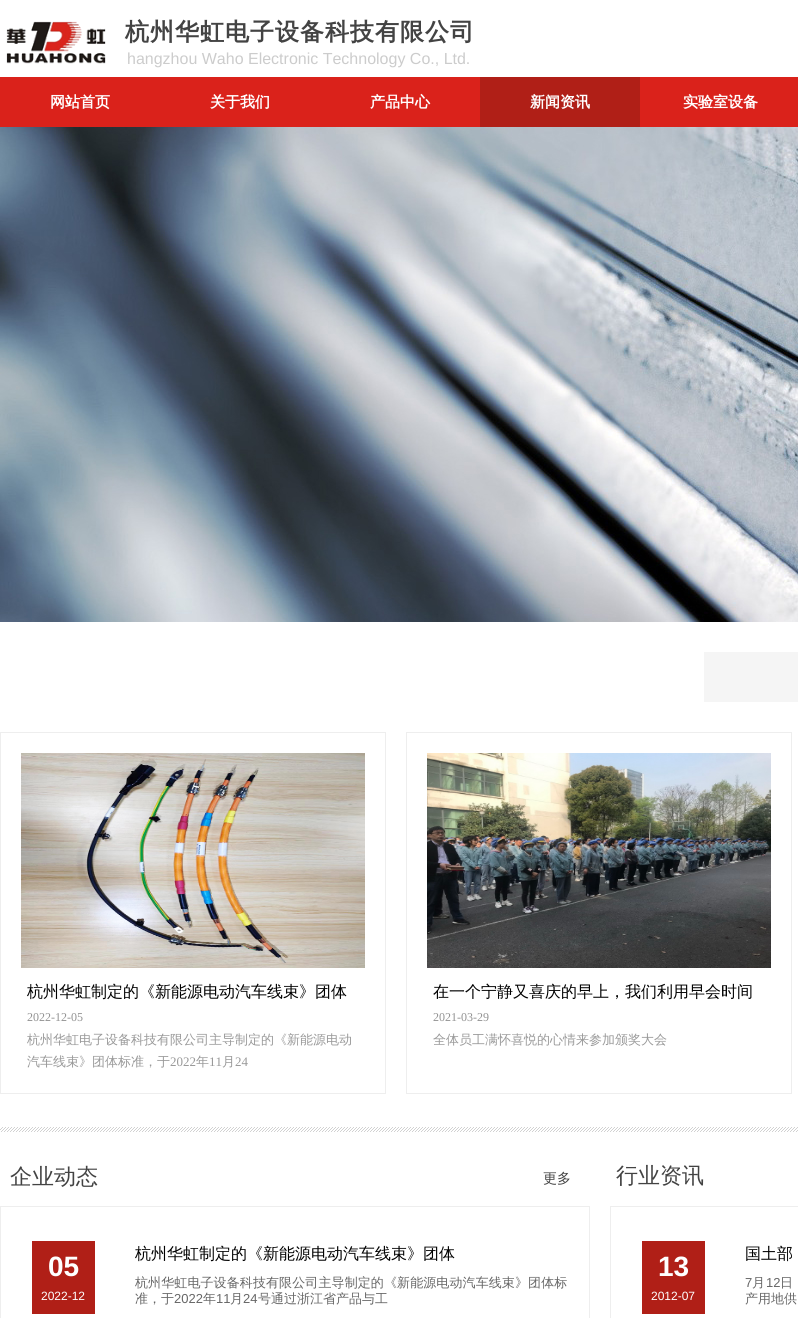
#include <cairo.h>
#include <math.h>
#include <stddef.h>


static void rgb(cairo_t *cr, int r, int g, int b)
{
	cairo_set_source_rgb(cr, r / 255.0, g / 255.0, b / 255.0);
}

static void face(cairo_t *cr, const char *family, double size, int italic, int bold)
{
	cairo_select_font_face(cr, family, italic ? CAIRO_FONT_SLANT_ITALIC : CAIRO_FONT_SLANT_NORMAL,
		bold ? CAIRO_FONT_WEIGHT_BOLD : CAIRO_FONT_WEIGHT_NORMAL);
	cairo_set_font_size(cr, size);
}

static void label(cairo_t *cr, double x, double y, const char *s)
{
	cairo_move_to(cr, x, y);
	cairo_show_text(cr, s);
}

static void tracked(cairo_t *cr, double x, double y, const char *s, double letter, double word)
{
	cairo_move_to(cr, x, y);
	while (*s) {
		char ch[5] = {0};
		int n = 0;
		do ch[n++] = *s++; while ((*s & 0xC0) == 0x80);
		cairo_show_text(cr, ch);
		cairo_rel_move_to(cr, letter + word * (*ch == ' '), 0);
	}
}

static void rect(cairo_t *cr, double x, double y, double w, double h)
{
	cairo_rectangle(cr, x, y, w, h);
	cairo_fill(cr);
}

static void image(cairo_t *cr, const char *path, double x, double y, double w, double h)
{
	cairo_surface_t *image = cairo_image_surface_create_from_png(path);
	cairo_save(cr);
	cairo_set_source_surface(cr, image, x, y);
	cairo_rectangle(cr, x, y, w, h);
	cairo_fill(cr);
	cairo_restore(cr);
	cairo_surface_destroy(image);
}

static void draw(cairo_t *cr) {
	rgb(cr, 255, 255, 255);
	cairo_paint(cr);
	image(cr, "image0.png", 6, 21, 100, 43);
	face(cr, "WenQuanYi Zen Hei", 24, 0, 1);
	rgb(cr, 67, 67, 67);
	tracked(cr, 125, 40, "杭州华虹电子设备科技有限公司", 1, 0);
	face(cr, "Liberation Sans", 16, 0, 0);
	rgb(cr, 204, 204, 204);
	label(cr, 127, 64, "hangzhou Waho Electronic Technology Co., Ltd.");
	rgb(cr, 218, 34, 27);
	rect(cr, 0, 77, 798, 50);
	face(cr, "WenQuanYi Zen Hei", 15, 0, 1);
	rgb(cr, 255, 255, 255);
	label(cr, 50, 107, "网站首页");
	label(cr, 210, 107, "关于我们");
	label(cr, 370, 107, "产品中心");
	rgb(cr, 176, 31, 23);
	rect(cr, 480, 77, 160, 50);
	rgb(cr, 255, 255, 255);
	label(cr, 530, 107, "新闻资讯");
	label(cr, 683, 107, "实验室设备");
	image(cr, "image1.png", 0, 127, 798, 495);
	rgb(cr, 245, 245, 245);
	rect(cr, 704, 652, 94, 50);
	cairo_rectangle(cr, 0.5, 732.5, 385, 361);
	rgb(cr, 238, 238, 238);
	cairo_set_line_width(cr, 1);
	cairo_stroke(cr);
	image(cr, "image2.png", 21, 753, 344, 215);
	face(cr, "WenQuanYi Zen Hei Medium", 16, 0, 0);
	rgb(cr, 0, 0, 0);
	label(cr, 27, 997, "杭州华虹制定的《新能源电动汽车线束》团体");
	face(cr, "Liberation Serif", 12, 0, 0);
	rgb(cr, 146, 146, 146);
	label(cr, 27, 1021, "2022-12-05");
	face(cr, "WenQuanYi Zen Hei Medium", 13, 0, 0);
	rgb(cr, 153, 153, 153);
	label(cr, 27, 1044, "杭州华虹电子设备科技有限公司主导制定的《新能源电动");
	label(cr, 27, 1066, "汽车线束》团体标准，于");
	face(cr, "Liberation Serif", 13, 0, 0);
	label(cr, 170, 1066, "2022");
	face(cr, "WenQuanYi Zen Hei Medium", 13, 0, 0);
	label(cr, 196, 1066, "年");
	face(cr, "Liberation Serif", 13, 0, 0);
	label(cr, 209, 1066, "11");
	face(cr, "WenQuanYi Zen Hei Medium", 13, 0, 0);
	label(cr, 222, 1066, "月");
	face(cr, "Liberation Serif", 13, 0, 0);
	label(cr, 235, 1066, "24");
	cairo_rectangle(cr, 406.5, 732.5, 385, 361);
	rgb(cr, 238, 238, 238);
	cairo_stroke(cr);
	image(cr, "image3.png", 427, 753, 344, 215);
	face(cr, "WenQuanYi Zen Hei Medium", 16, 0, 0);
	rgb(cr, 0, 0, 0);
	label(cr, 433, 997, "在一个宁静又喜庆的早上，我们利用早会时间");
	face(cr, "Liberation Serif", 12, 0, 0);
	rgb(cr, 146, 146, 146);
	label(cr, 433, 1021, "2021-03-29");
	face(cr, "WenQuanYi Zen Hei Medium", 13, 0, 0);
	rgb(cr, 153, 153, 153);
	label(cr, 433, 1044, "全体员工满怀喜悦的心情来参加颁奖大会");
	image(cr, "image4.png", 0, 1127, 798, 5);
	face(cr, "WenQuanYi Zen Hei Medium", 22, 0, 0);
	rgb(cr, 67, 67, 67);
	label(cr, 10, 1184, "企业动态");
	face(cr, "WenQuanYi Zen Hei Medium", 14, 0, 0);
	label(cr, 543, 1183, "更多");
	face(cr, "WenQuanYi Zen Hei Medium", 22, 0, 0);
	label(cr, 616, 1183, "行业资讯");
	cairo_rectangle(cr, 0.5, 1206.5, 589, 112);
	rgb(cr, 238, 238, 238);
	cairo_stroke(cr);
	cairo_rectangle(cr, 610.5, 1206.5, 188, 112);
	cairo_stroke(cr);
	rgb(cr, 176, 31, 23);
	rect(cr, 32, 1241, 63, 73);
	face(cr, "Liberation Sans", 28, 0, 1);
	rgb(cr, 255, 255, 255);
	label(cr, 48, 1276, "05");
	face(cr, "Liberation Sans", 12, 0, 0);
	label(cr, 41, 1300, "2022-12");
	face(cr, "WenQuanYi Zen Hei Medium", 16, 0, 0);
	rgb(cr, 0, 0, 0);
	label(cr, 135, 1259, "杭州华虹制定的《新能源电动汽车线束》团体");
	face(cr, "WenQuanYi Zen Hei Medium", 13, 0, 0);
	rgb(cr, 102, 102, 102);
	tracked(cr, 135, 1287, "杭州华虹电子设备科技有限公司主导制定的《新能源电动汽车线束》团体标", 0.1, 0);
	label(cr, 135, 1303, "准，于");
	face(cr, "Liberation Sans", 13, 0, 0);
	label(cr, 174, 1303, "2022");
	face(cr, "WenQuanYi Zen Hei Medium", 13, 0, 0);
	label(cr, 203, 1303, "年");
	face(cr, "Liberation Sans", 13, 0, 0);
	label(cr, 216, 1303, "11");
	face(cr, "WenQuanYi Zen Hei Medium", 13, 0, 0);
	label(cr, 230, 1303, "月");
	face(cr, "Liberation Sans", 13, 0, 0);
	label(cr, 243, 1303, "24");
	face(cr, "WenQuanYi Zen Hei Medium", 13, 0, 0);
	label(cr, 258, 1303, "号通过浙江省产品与工");
	rgb(cr, 176, 31, 23);
	rect(cr, 642, 1241, 63, 73);
	face(cr, "Liberation Sans", 28, 0, 1);
	rgb(cr, 255, 255, 255);
	label(cr, 658, 1276, "13");
	face(cr, "Liberation Sans", 12, 0, 0);
	label(cr, 651, 1300, "2012-07");
	face(cr, "WenQuanYi Zen Hei Medium", 16, 0, 0);
	rgb(cr, 0, 0, 0);
	label(cr, 745, 1259, "国土部");
	face(cr, "Liberation Sans", 13, 0, 0);
	rgb(cr, 102, 102, 102);
	label(cr, 745, 1287, "7");
	face(cr, "WenQuanYi Zen Hei Medium", 13, 0, 0);
	label(cr, 752, 1287, "月");
	face(cr, "Liberation Sans", 13, 0, 0);
	label(cr, 766, 1287, "12");
	face(cr, "WenQuanYi Zen Hei Medium", 13, 0, 0);
	label(cr, 780, 1287, "日");
	label(cr, 745, 1303, "产用地供");
}

int main(void) {
	cairo_surface_t *surface = cairo_image_surface_create(CAIRO_FORMAT_RGB24, 798, 1318);
	cairo_t *cr = cairo_create(surface);
	cairo_font_options_t *options = cairo_font_options_create();
	cairo_font_options_set_hint_metrics(options, CAIRO_HINT_METRICS_OFF);
	cairo_font_options_set_hint_style(options, CAIRO_HINT_STYLE_NONE);
	cairo_set_font_options(cr, options);
	cairo_set_miter_limit(cr, 4);
	draw(cr);
	cairo_surface_write_to_png(surface, "render.png");
	cairo_font_options_destroy(options);
	cairo_destroy(cr);
	cairo_surface_destroy(surface);
	return 0;
}
